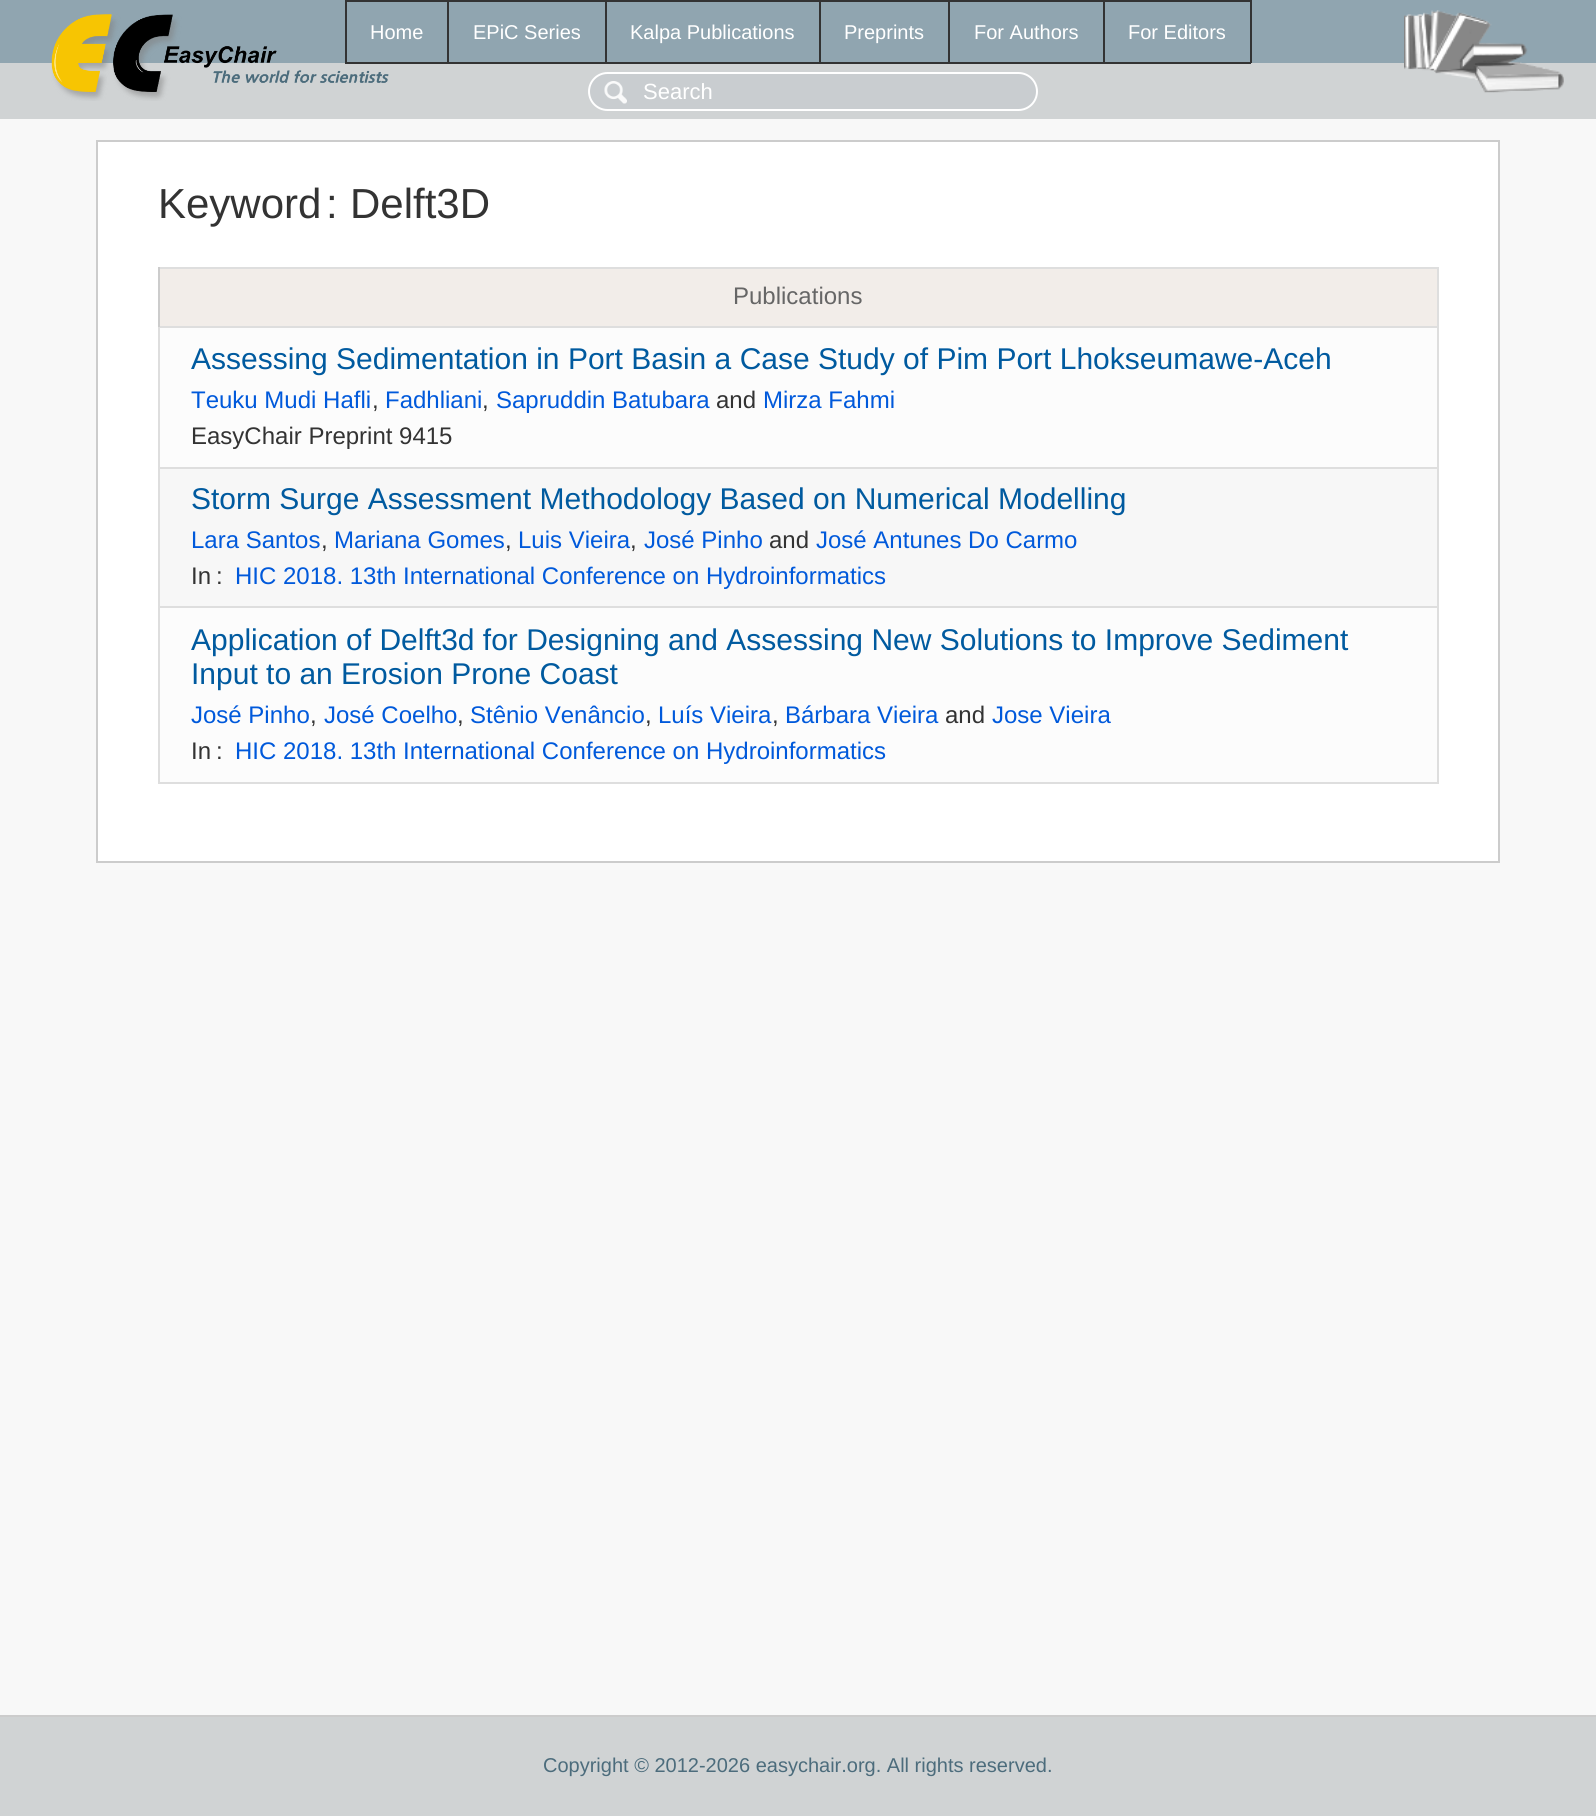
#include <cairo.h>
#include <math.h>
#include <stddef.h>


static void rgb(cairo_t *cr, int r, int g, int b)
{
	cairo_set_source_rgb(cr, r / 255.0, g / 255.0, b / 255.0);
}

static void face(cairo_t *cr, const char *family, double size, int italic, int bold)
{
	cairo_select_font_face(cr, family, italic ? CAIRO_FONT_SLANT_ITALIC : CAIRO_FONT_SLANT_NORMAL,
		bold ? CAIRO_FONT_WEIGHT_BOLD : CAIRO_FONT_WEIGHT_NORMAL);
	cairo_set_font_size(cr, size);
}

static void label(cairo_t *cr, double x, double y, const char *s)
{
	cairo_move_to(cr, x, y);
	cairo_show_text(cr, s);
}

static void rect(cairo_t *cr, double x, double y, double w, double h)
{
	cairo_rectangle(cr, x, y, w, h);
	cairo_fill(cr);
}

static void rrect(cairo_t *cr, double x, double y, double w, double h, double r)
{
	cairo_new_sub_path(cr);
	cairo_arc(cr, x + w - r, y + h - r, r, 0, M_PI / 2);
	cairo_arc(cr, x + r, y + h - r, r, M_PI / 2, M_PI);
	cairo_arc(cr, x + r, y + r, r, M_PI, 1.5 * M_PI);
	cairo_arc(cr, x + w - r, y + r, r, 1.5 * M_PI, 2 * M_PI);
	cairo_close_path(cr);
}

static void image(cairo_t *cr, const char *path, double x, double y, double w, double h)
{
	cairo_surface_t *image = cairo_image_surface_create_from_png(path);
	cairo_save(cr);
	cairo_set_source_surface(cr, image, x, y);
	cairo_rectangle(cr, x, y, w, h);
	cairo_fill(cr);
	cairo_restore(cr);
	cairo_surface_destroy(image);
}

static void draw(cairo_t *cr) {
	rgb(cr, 144, 165, 176);
	cairo_paint(cr);
	rgb(cr, 208, 211, 212);
	rect(cr, 0, 65, 1595, 52);
	rect(cr, 0, 63, 1596, 2);
	image(cr, "image0.png", 51, 14, 338, 87);
	rgb(cr, 51, 51, 51);
	rect(cr, 1103, 0, 148, 2);
	rect(cr, 1250, 0, 2, 63);
	rect(cr, 1103, 62, 148, 2);
	rect(cr, 1103, 0, 2, 63);
	rect(cr, 948, 0, 156, 2);
	rect(cr, 948, 62, 156, 2);
	rect(cr, 948, 0, 2, 63);
	rect(cr, 819, 0, 131, 2);
	rect(cr, 819, 62, 131, 2);
	rect(cr, 819, 0, 2, 63);
	rect(cr, 605, 0, 216, 2);
	rect(cr, 605, 62, 216, 2);
	rect(cr, 605, 0, 2, 63);
	rect(cr, 447, 0, 159, 2);
	rect(cr, 447, 62, 159, 2);
	rect(cr, 447, 0, 2, 63);
	rect(cr, 345, 0, 104, 2);
	rect(cr, 345, 62, 104, 2);
	rect(cr, 345, 0, 2, 63);
	face(cr, "Liberation Sans", 20, 0, 0);
	rgb(cr, 255, 255, 255);
	label(cr, 370, 39, "Home");
	label(cr, 473, 39, "EPiC Series");
	label(cr, 630, 39, "Kalpa Publications");
	label(cr, 844, 39, "Preprints");
	label(cr, 974, 39, "For Authors");
	label(cr, 1128, 39, "For Editors");
	image(cr, "image1.png", 1404, 10, 160, 83);
	rgb(cr, 208, 211, 212);
	rect(cr, 1595, 63, 1, 56);
	rect(cr, 0, 117, 1596, 2);
	rgb(cr, 201, 205, 208);
	rrect(cr, 588, 72, 450, 39, 19.5);
	cairo_fill(cr);
	image(cr, "image2.png", 604, 81, 23, 23);
	rrect(cr, 589, 73, 448, 37, 18.5);
	rgb(cr, 255, 255, 255);
	cairo_stroke(cr);
	face(cr, "Liberation Sans", 22, 0, 0);
	label(cr, 643, 99, "Search");
	rgb(cr, 248, 248, 248);
	rect(cr, 0, 119, 1596, 1596);
	rgb(cr, 255, 255, 255);
	cairo_rectangle(cr, 97, 141, 1402, 721);
	cairo_fill_preserve(cr);
	rgb(cr, 204, 204, 204);
	cairo_stroke(cr);
	face(cr, "Liberation Sans", 42, 0, 0);
	rgb(cr, 51, 51, 51);
	label(cr, 158, 218, "Keyword");
	label(cr, 326, 218, ":");
	label(cr, 350, 218, "Delft3D");
	rgb(cr, 222, 222, 222);
	rect(cr, 158, 267, 1281, 2);
	rect(cr, 1437, 267, 2, 516);
	rect(cr, 158, 782, 1281, 2);
	rect(cr, 158, 328, 2, 455);
	rgb(cr, 242, 237, 233);
	rect(cr, 160, 269, 1277, 57);
	rgb(cr, 222, 222, 222);
	rect(cr, 158, 326, 1281, 2);
	rgb(cr, 204, 204, 204);
	rect(cr, 158, 267, 2, 60);
	face(cr, "Liberation Sans", 24, 0, 0);
	rgb(cr, 102, 102, 102);
	label(cr, 733, 304, "Publications");
	rgb(cr, 252, 252, 252);
	rect(cr, 160, 328, 1277, 139);
	rgb(cr, 222, 222, 222);
	rect(cr, 158, 467, 1281, 2);
	face(cr, "Liberation Sans", 30, 0, 0);
	rgb(cr, 0, 90, 159);
	label(cr, 191, 369, "Assessing Sedimentation in Port Basin a Case Study of Pim Port Lhokseumawe-Aceh");
	face(cr, "Liberation Sans", 24, 0, 0);
	rgb(cr, 0, 89, 219);
	label(cr, 191, 408, "Teuku Mudi Hafli");
	rgb(cr, 51, 51, 51);
	label(cr, 372, 408, ",");
	rgb(cr, 0, 89, 219);
	label(cr, 385, 408, "Fadhliani");
	rgb(cr, 51, 51, 51);
	label(cr, 482, 408, ",");
	rgb(cr, 0, 89, 219);
	label(cr, 496, 408, "Sapruddin Batubara");
	rgb(cr, 51, 51, 51);
	label(cr, 716, 408, "and");
	rgb(cr, 0, 89, 219);
	label(cr, 763, 408, "Mirza Fahmi");
	rgb(cr, 51, 51, 51);
	label(cr, 191, 444, "EasyChair Preprint 9415");
	rgb(cr, 247, 247, 247);
	rect(cr, 160, 469, 1277, 137);
	rgb(cr, 222, 222, 222);
	rect(cr, 158, 606, 1281, 2);
	face(cr, "Liberation Sans", 30, 0, 0);
	rgb(cr, 0, 90, 159);
	label(cr, 191, 509, "Storm Surge Assessment Methodology Based on Numerical Modelling");
	face(cr, "Liberation Sans", 24, 0, 0);
	rgb(cr, 0, 89, 219);
	label(cr, 191, 548, "Lara Santos");
	rgb(cr, 51, 51, 51);
	label(cr, 321, 548, ",");
	rgb(cr, 0, 89, 219);
	label(cr, 334, 548, "Mariana Gomes");
	rgb(cr, 51, 51, 51);
	label(cr, 505, 548, ",");
	rgb(cr, 0, 89, 219);
	label(cr, 518, 548, "Luis Vieira");
	rgb(cr, 51, 51, 51);
	label(cr, 630, 548, ",");
	rgb(cr, 0, 89, 219);
	label(cr, 644, 548, "José Pinho");
	rgb(cr, 51, 51, 51);
	label(cr, 769, 548, "and");
	rgb(cr, 0, 89, 219);
	label(cr, 816, 548, "José Antunes Do Carmo");
	rgb(cr, 51, 51, 51);
	label(cr, 191, 584, "In");
	label(cr, 216, 584, ":");
	rgb(cr, 0, 89, 219);
	label(cr, 235, 584, "HIC 2018. 13th International Conference on Hydroinformatics");
	rgb(cr, 252, 252, 252);
	rect(cr, 160, 608, 1277, 174);
	face(cr, "Liberation Sans", 30, 0, 0);
	rgb(cr, 0, 90, 159);
	label(cr, 191, 650, "Application of Delft3d for Designing and Assessing New Solutions to Improve Sediment");
	label(cr, 191, 684, "Input to an Erosion Prone Coast");
	face(cr, "Liberation Sans", 24, 0, 0);
	rgb(cr, 0, 89, 219);
	label(cr, 191, 723, "José Pinho");
	rgb(cr, 51, 51, 51);
	label(cr, 310, 723, ",");
	rgb(cr, 0, 89, 219);
	label(cr, 324, 723, "José Coelho");
	rgb(cr, 51, 51, 51);
	label(cr, 457, 723, ",");
	rgb(cr, 0, 89, 219);
	label(cr, 470, 723, "Stênio Venâncio");
	rgb(cr, 51, 51, 51);
	label(cr, 645, 723, ",");
	rgb(cr, 0, 89, 219);
	label(cr, 658, 723, "Luís Vieira");
	rgb(cr, 51, 51, 51);
	label(cr, 772, 723, ",");
	rgb(cr, 0, 89, 219);
	label(cr, 785, 723, "Bárbara Vieira");
	rgb(cr, 51, 51, 51);
	label(cr, 945, 723, "and");
	rgb(cr, 0, 89, 219);
	label(cr, 992, 723, "Jose Vieira");
	rgb(cr, 51, 51, 51);
	label(cr, 191, 759, "In");
	label(cr, 216, 759, ":");
	rgb(cr, 0, 89, 219);
	label(cr, 235, 759, "HIC 2018. 13th International Conference on Hydroinformatics");
	rgb(cr, 208, 211, 212);
	rect(cr, 0, 1717, 1596, 99);
	rgb(cr, 204, 204, 204);
	rect(cr, 0, 1715, 1596, 2);
	face(cr, "Liberation Sans", 20, 0, 0);
	rgb(cr, 76, 108, 124);
	label(cr, 543, 1772, "Copyright © 2012-2026 easychair.org. All rights reserved.");
}

int main(void) {
	cairo_surface_t *surface = cairo_image_surface_create(CAIRO_FORMAT_RGB24, 1596, 1816);
	cairo_t *cr = cairo_create(surface);
	cairo_font_options_t *options = cairo_font_options_create();
	cairo_font_options_set_hint_metrics(options, CAIRO_HINT_METRICS_OFF);
	cairo_font_options_set_hint_style(options, CAIRO_HINT_STYLE_NONE);
	cairo_set_font_options(cr, options);
	cairo_set_miter_limit(cr, 4);
	draw(cr);
	cairo_surface_write_to_png(surface, "render.png");
	cairo_font_options_destroy(options);
	cairo_destroy(cr);
	cairo_surface_destroy(surface);
	return 0;
}
